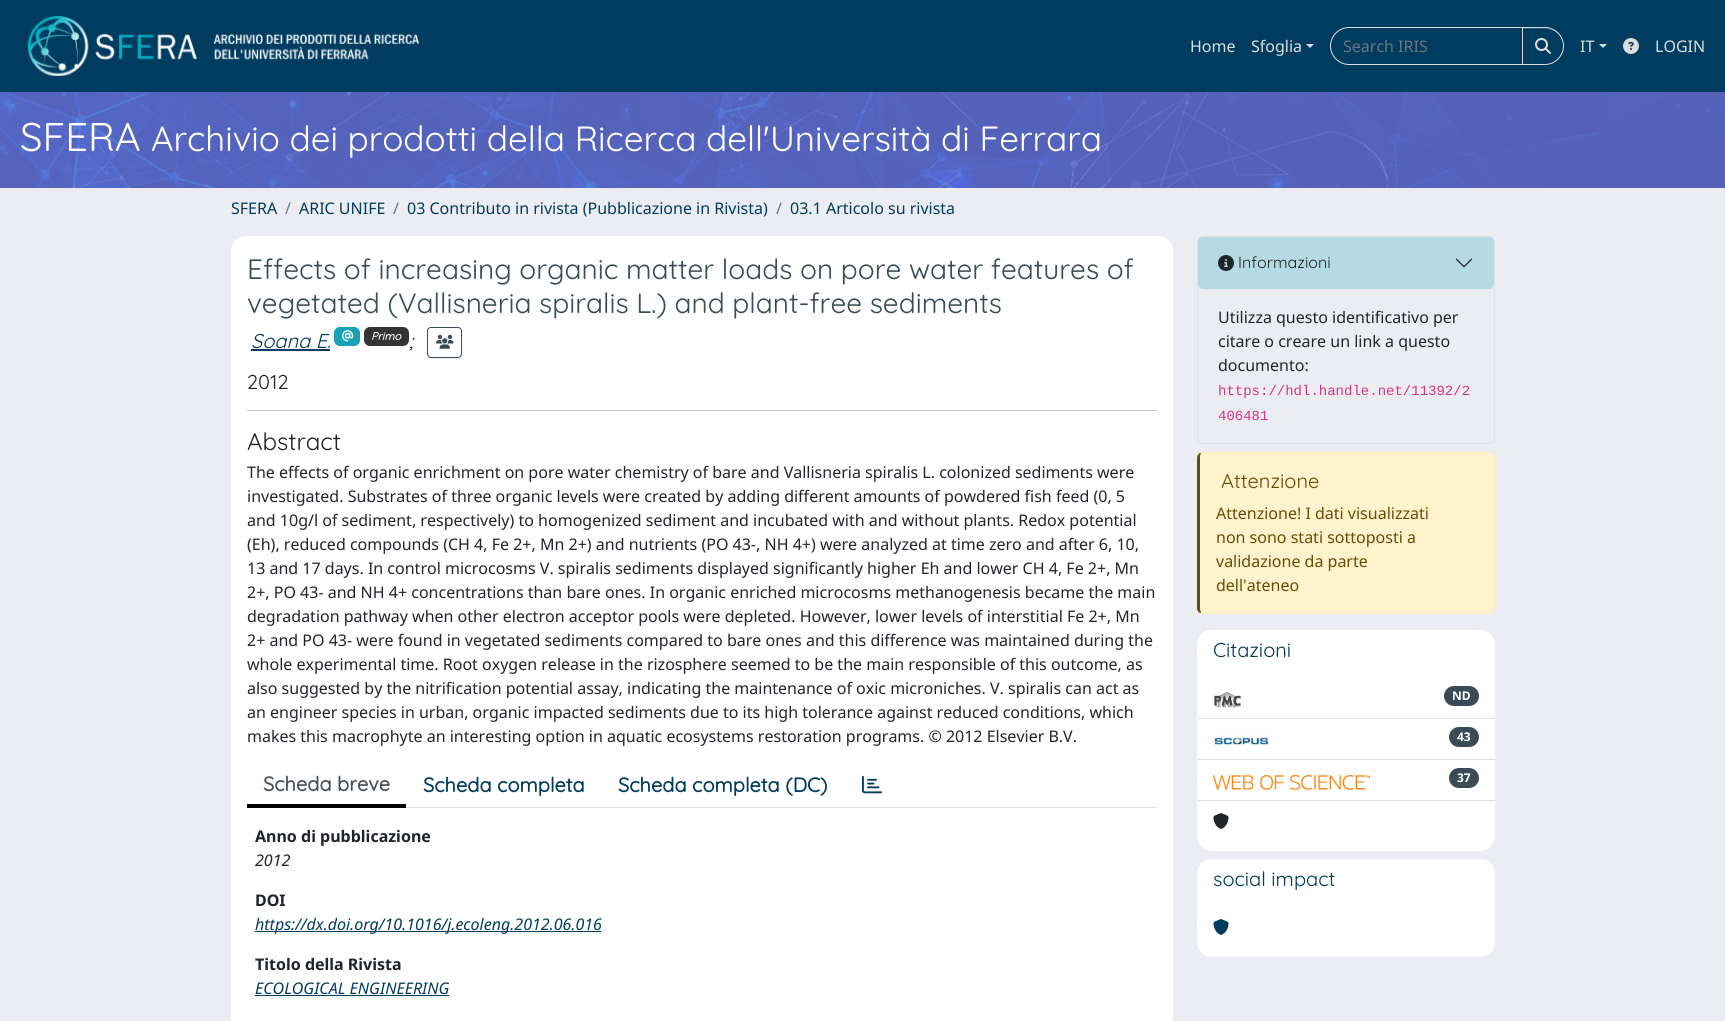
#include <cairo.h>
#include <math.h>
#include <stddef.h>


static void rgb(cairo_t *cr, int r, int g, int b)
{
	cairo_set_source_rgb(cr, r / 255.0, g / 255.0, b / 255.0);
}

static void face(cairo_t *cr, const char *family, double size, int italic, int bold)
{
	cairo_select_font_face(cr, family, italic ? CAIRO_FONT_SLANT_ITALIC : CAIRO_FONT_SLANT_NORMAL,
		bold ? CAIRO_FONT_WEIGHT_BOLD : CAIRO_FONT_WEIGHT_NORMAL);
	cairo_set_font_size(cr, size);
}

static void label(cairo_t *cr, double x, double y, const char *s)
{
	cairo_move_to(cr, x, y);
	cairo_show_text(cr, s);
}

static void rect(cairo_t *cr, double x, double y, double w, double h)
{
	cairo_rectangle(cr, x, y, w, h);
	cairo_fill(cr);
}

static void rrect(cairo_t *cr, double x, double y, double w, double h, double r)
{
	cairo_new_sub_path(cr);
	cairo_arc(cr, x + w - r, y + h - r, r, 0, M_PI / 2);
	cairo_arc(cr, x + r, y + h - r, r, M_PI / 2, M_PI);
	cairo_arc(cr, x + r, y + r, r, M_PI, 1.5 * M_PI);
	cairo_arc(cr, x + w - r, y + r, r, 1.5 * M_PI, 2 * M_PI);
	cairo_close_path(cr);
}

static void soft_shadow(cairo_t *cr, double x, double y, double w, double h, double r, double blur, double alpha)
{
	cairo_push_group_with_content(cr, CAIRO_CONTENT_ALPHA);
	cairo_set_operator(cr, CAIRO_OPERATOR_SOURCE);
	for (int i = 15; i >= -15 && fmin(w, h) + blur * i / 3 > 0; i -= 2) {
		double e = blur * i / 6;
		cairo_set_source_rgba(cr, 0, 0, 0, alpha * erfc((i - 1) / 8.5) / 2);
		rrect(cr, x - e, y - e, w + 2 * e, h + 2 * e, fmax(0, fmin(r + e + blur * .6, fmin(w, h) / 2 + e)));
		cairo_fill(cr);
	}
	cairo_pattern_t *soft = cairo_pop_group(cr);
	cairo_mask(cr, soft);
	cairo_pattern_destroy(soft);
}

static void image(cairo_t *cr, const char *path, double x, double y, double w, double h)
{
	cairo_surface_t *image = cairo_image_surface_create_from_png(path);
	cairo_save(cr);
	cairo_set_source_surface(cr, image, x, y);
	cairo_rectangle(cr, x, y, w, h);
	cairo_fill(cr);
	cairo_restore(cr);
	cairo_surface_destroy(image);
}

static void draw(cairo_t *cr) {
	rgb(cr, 236, 237, 242);
	cairo_paint(cr);
	rgb(cr, 0, 60, 95);
	rect(cr, 0, 0, 1725, 92);
	image(cr, "image0.png", 28, 16, 391, 60);
	face(cr, "Noto Sans", 16, 0, 0);
	rgb(cr, 221, 221, 221);
	label(cr, 1190, 52, "Home");
	label(cr, 1251, 52, "Sfoglia");
	cairo_new_path(cr);
	cairo_move_to(cr, 1306, 44);
	cairo_line_to(cr, 1314, 44);
	cairo_line_to(cr, 1310, 48);
	cairo_close_path(cr);
	cairo_fill(cr);
	cairo_new_path(cr);
	cairo_move_to(cr, 1349, 27.5);
	cairo_line_to(cr, 1522.5, 27.5);
	cairo_line_to(cr, 1522.5, 64.5);
	cairo_line_to(cr, 1349, 64.5);
	cairo_curve_to(cr, 1339, 64.5, 1330.5, 56, 1330.5, 46);
	cairo_curve_to(cr, 1330.5, 36, 1339, 27.5, 1349, 27.5);
	cairo_close_path(cr);
	cairo_set_line_width(cr, 1);
	cairo_stroke(cr);
	rgb(cr, 108, 117, 125);
	label(cr, 1343, 52, "Search IRIS");
	rgb(cr, 0, 0, 0);
	soft_shadow(cr, 1522, 28, 42, 38, 19, 0.5, 0.07);
	rgb(cr, 0, 60, 95);
	cairo_new_path(cr);
	cairo_move_to(cr, 1522, 27);
	cairo_line_to(cr, 1545, 27);
	cairo_curve_to(cr, 1555.5, 27, 1564, 35.5, 1564, 46);
	cairo_curve_to(cr, 1564, 56.5, 1555.5, 65, 1545, 65);
	cairo_line_to(cr, 1522, 65);
	cairo_close_path(cr);
	cairo_fill(cr);
	rgb(cr, 38, 89, 119);
	cairo_new_path(cr);
	cairo_move_to(cr, 1523, 29);
	cairo_line_to(cr, 1545, 29);
	cairo_curve_to(cr, 1555, 29, 1563, 37, 1563, 46);
	cairo_curve_to(cr, 1563, 38, 1557, 30, 1549, 28);
	cairo_line_to(cr, 1523, 28);
	cairo_close_path(cr);
	cairo_fill(cr);
	cairo_new_path(cr);
	cairo_move_to(cr, 1522.5, 27.5);
	cairo_line_to(cr, 1545, 27.5);
	cairo_curve_to(cr, 1555, 27.5, 1563.5, 36, 1563.5, 46);
	cairo_curve_to(cr, 1563.5, 56, 1555, 64.5, 1545, 64.5);
	cairo_line_to(cr, 1522.5, 64.5);
	cairo_close_path(cr);
	rgb(cr, 221, 221, 221);
	cairo_stroke(cr);
	image(cr, "image1.png", 1535, 38, 16, 16);
	label(cr, 1580, 52, "IT");
	cairo_new_path(cr);
	cairo_move_to(cr, 1599, 44);
	cairo_line_to(cr, 1607, 44);
	cairo_line_to(cr, 1603, 48);
	cairo_close_path(cr);
	cairo_fill(cr);
	image(cr, "image2.png", 1623, 38, 16, 16);
	label(cr, 1655, 52, "LOGIN");
	image(cr, "image3.png", 0, 92, 1725, 96);
	face(cr, "Quicksand", 40, 0, 0);
	rgb(cr, 255, 255, 255);
	label(cr, 20, 151, "SFERA");
	face(cr, "Quicksand", 35, 0, 0);
	label(cr, 151, 151, "Archivio dei prodotti della Ricerca dell'Università di Ferrara");
	face(cr, "Noto Sans", 16, 0, 0);
	rgb(cr, 0, 60, 95);
	label(cr, 231, 214, "SFERA");
	rgb(cr, 108, 117, 125);
	label(cr, 285, 214, "/");
	rgb(cr, 0, 60, 95);
	label(cr, 299, 214, "ARIC UNIFE");
	rgb(cr, 108, 117, 125);
	label(cr, 393, 214, "/");
	rgb(cr, 0, 60, 95);
	label(cr, 407, 214, "03 Contributo in rivista (Pubblicazione in Rivista)");
	rgb(cr, 108, 117, 125);
	label(cr, 776, 214, "/");
	rgb(cr, 0, 60, 95);
	label(cr, 790, 214, "03.1 Articolo su rivista");
	rgb(cr, 255, 255, 255);
	rrect(cr, 231, 236, 942, 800, 15);
	cairo_fill(cr);
	face(cr, "Quicksand", 28, 0, 0);
	rgb(cr, 58, 75, 85);
	label(cr, 247, 279, "Effects of increasing organic matter loads on pore water features of");
	label(cr, 247, 313, "vegetated (Vallisneria spiralis L.) and plant-free sediments");
	face(cr, "Quicksand", 20, 1, 0);
	rgb(cr, 0, 60, 95);
	label(cr, 251, 348, "Soana E.");
	rect(cr, 251, 349, 79, 2);
	rgb(cr, 23, 162, 184);
	rrect(cr, 334, 327, 26, 19, 6);
	cairo_fill(cr);
	image(cr, "image4.png", 342, 330, 12, 12);
	rgb(cr, 52, 52, 52);
	rrect(cr, 364, 327, 45, 19, 6);
	cairo_fill(cr);
	face(cr, "Quicksand", 11, 1, 1);
	rgb(cr, 255, 255, 255);
	label(cr, 371, 340, "Primo");
	face(cr, "Quicksand", 20, 1, 0);
	rgb(cr, 33, 37, 41);
	label(cr, 409, 348, ";");
	cairo_save(cr);
	cairo_set_fill_rule(cr, CAIRO_FILL_RULE_EVEN_ODD);
	cairo_new_path(cr);
	cairo_move_to(cr, 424, 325);
	cairo_line_to(cr, 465, 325);
	cairo_line_to(cr, 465, 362);
	cairo_line_to(cr, 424, 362);
	cairo_close_path(cr);
	cairo_move_to(cr, 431, 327);
	cairo_line_to(cr, 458, 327);
	cairo_curve_to(cr, 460, 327, 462, 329, 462, 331);
	cairo_line_to(cr, 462, 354);
	cairo_curve_to(cr, 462, 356, 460, 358, 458, 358);
	cairo_line_to(cr, 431, 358);
	cairo_curve_to(cr, 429, 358, 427, 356, 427, 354);
	cairo_line_to(cr, 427, 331);
	cairo_curve_to(cr, 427, 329, 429, 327, 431, 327);
	cairo_close_path(cr);
	cairo_clip(cr);
	rgb(cr, 0, 0, 0);
	soft_shadow(cr, 427, 328, 35, 31, 4, 0.5, 0.07);
	cairo_restore(cr);
	rrect(cr, 427.5, 327.5, 34, 30, 3.5);
	rgb(cr, 58, 75, 85);
	cairo_stroke(cr);
	image(cr, "image5.png", 436, 334, 18, 15);
	face(cr, "Quicksand", 20, 0, 0);
	rgb(cr, 33, 37, 41);
	label(cr, 247, 389, "2012");
	rgb(cr, 200, 201, 202);
	rect(cr, 247, 410, 910, 1);
	face(cr, "Quicksand", 24, 0, 0);
	rgb(cr, 33, 37, 41);
	label(cr, 247, 450, "Abstract");
	face(cr, "Noto Sans", 16, 0, 0);
	label(cr, 247, 478, "The effects of organic enrichment on pore water chemistry of bare and Vallisneria spiralis L. colonized sediments were");
	label(cr, 247, 502, "investigated. Substrates of three organic levels were created by adding different amounts of powdered fish feed (0, 5");
	label(cr, 247, 526, "and 10g/l of sediment, respectively) to homogenized sediment and incubated with and without plants. Redox potential");
	label(cr, 247, 550, "(Eh), reduced compounds (CH 4, Fe 2+, Mn 2+) and nutrients (PO 43-, NH 4+) were analyzed at time zero and after 6, 10,");
	label(cr, 247, 574, "13 and 17 days. In control microcosms V. spiralis sediments displayed significantly higher Eh and lower CH 4, Fe 2+, Mn");
	label(cr, 247, 598, "2+, PO 43- and NH 4+ concentrations than bare ones. In organic enriched microcosms methanogenesis became the main");
	label(cr, 247, 622, "degradation pathway when other electron acceptor pools were depleted. However, lower levels of interstitial Fe 2+, Mn");
	label(cr, 247, 646, "2+ and PO 43- were found in vegetated sediments compared to bare ones and this difference was maintained during the");
	label(cr, 247, 670, "whole experimental time. Root oxygen release in the rizosphere seemed to be the main responsible of this outcome, as");
	label(cr, 247, 694, "also suggested by the nitrification potential assay, indicating the maintenance of oxic microniches. V. spiralis can act as");
	label(cr, 247, 718, "an engineer species in urban, organic impacted sediments due to its high tolerance against reduced conditions, which");
	label(cr, 247, 742, "makes this macrophyte an interesting option in aquatic ecosystems restoration programs. © 2012 Elsevier B.V.");
	rgb(cr, 222, 226, 230);
	rect(cr, 406, 807, 751, 1);
	rgb(cr, 0, 0, 0);
	rect(cr, 247, 804, 159, 4);
	face(cr, "Quicksand", 20, 0, 1);
	rgb(cr, 73, 80, 87);
	label(cr, 263, 791, "Scheda breve");
	rgb(cr, 0, 60, 95);
	label(cr, 423, 792, "Scheda completa");
	label(cr, 618, 792, "Scheda completa (DC)");
	image(cr, "image6.png", 862, 775, 20, 19);
	face(cr, "Noto Sans", 16, 0, 1);
	rgb(cr, 33, 37, 41);
	label(cr, 255, 842, "Anno di pubblicazione");
	face(cr, "Noto Sans", 16, 1, 0);
	label(cr, 255, 866, "2012");
	face(cr, "Noto Sans", 16, 0, 1);
	label(cr, 255, 906, "DOI");
	rgb(cr, 0, 60, 95);
	rect(cr, 255, 931, 346, 1);
	face(cr, "Noto Sans", 16, 1, 0);
	label(cr, 255, 930, "https://dx.doi.org/10.1016/j.ecoleng.2012.06.016");
	face(cr, "Noto Sans", 16, 0, 1);
	rgb(cr, 33, 37, 41);
	label(cr, 255, 970, "Titolo della Rivista");
	face(cr, "Noto Sans", 16, 1, 0);
	rgb(cr, 0, 60, 95);
	label(cr, 255, 994, "ECOLOGICAL ENGINEERING");
	rect(cr, 255, 995, 194, 1);
	rrect(cr, 1197.5, 236.5, 297, 207, 5.5);
	rgb(cr, 222, 226, 230);
	cairo_stroke(cr);
	cairo_set_source_rgba(cr, 0.09, 0.635, 0.722, 0.25);
	rrect(cr, 1198, 237, 296, 52, 5);
	cairo_fill(cr);
	image(cr, "image7.png", 1218, 255, 16, 16);
	face(cr, "Quicksand", 16, 0, 0);
	rgb(cr, 33, 37, 41);
	label(cr, 1238, 268, "Informazioni");
	image(cr, "image8.png", 1455, 258, 18, 10);
	face(cr, "Noto Sans", 16, 0, 0);
	label(cr, 1218, 323, "Utilizza questo identificativo per");
	label(cr, 1218, 347, "citare o creare un link a questo");
	label(cr, 1218, 371, "documento:");
	face(cr, "Liberation Mono", 14, 0, 0);
	rgb(cr, 214, 51, 132);
	label(cr, 1218, 395, "https://hdl.handle.net/11392/2");
	label(cr, 1218, 420, "406481");
	rgb(cr, 255, 243, 205);
	cairo_new_path(cr);
	cairo_move_to(cr, 1203, 453);
	cairo_line_to(cr, 1489, 453);
	cairo_curve_to(cr, 1492, 453, 1494, 455, 1494, 458);
	cairo_line_to(cr, 1494, 608);
	cairo_curve_to(cr, 1494, 611, 1492, 613, 1489, 613);
	cairo_line_to(cr, 1203, 613);
	cairo_curve_to(cr, 1201, 613, 1200, 611, 1200, 608);
	cairo_line_to(cr, 1200, 458);
	cairo_curve_to(cr, 1200, 455, 1201, 453, 1203, 453);
	cairo_close_path(cr);
	cairo_fill(cr);
	rgb(cr, 255, 236, 181);
	cairo_new_path(cr);
	cairo_move_to(cr, 1203, 452);
	cairo_line_to(cr, 1200, 453);
	cairo_line_to(cr, 1201, 453);
	cairo_line_to(cr, 1203, 453);
	cairo_line_to(cr, 1489, 453);
	cairo_curve_to(cr, 1490, 453, 1492, 454, 1493, 454);
	cairo_curve_to(cr, 1492, 453, 1490, 452, 1489, 452);
	cairo_close_path(cr);
	cairo_fill(cr);
	cairo_new_path(cr);
	cairo_move_to(cr, 1495, 608);
	cairo_line_to(cr, 1495, 457);
	cairo_line_to(cr, 1493, 454);
	cairo_curve_to(cr, 1494, 455, 1494, 456, 1494, 458);
	cairo_line_to(cr, 1494, 608);
	cairo_curve_to(cr, 1494, 610, 1494, 611, 1493, 612);
	cairo_curve_to(cr, 1494, 611, 1495, 610, 1495, 608);
	cairo_close_path(cr);
	cairo_fill(cr);
	cairo_new_path(cr);
	cairo_move_to(cr, 1203, 614);
	cairo_line_to(cr, 1489, 614);
	cairo_curve_to(cr, 1490, 614, 1492, 613, 1493, 612);
	cairo_curve_to(cr, 1492, 612, 1490, 613, 1489, 613);
	cairo_line_to(cr, 1203, 613);
	cairo_line_to(cr, 1201, 613);
	cairo_line_to(cr, 1200, 613);
	cairo_close_path(cr);
	cairo_fill(cr);
	rgb(cr, 102, 77, 3);
	cairo_new_path(cr);
	cairo_move_to(cr, 1197, 458);
	cairo_line_to(cr, 1197, 608);
	cairo_curve_to(cr, 1197, 610, 1198, 612, 1200, 613);
	cairo_line_to(cr, 1201, 613);
	cairo_line_to(cr, 1200, 609);
	cairo_line_to(cr, 1200, 458);
	cairo_curve_to(cr, 1200, 456, 1200, 455, 1201, 453);
	cairo_line_to(cr, 1200, 453);
	cairo_curve_to(cr, 1198, 454, 1197, 456, 1197, 458);
	cairo_close_path(cr);
	cairo_fill(cr);
	face(cr, "Quicksand", 20, 0, 0);
	label(cr, 1221, 488, "Attenzione");
	face(cr, "Noto Sans", 16, 0, 0);
	label(cr, 1216, 519, "Attenzione! I dati visualizzati");
	label(cr, 1216, 543, "non sono stati sottoposti a");
	label(cr, 1216, 567, "validazione da parte");
	label(cr, 1216, 591, "dell'ateneo");
	rgb(cr, 255, 255, 255);
	rrect(cr, 1197, 630, 298, 221, 15);
	cairo_fill(cr);
	cairo_new_path(cr);
	cairo_move_to(cr, 1212, 630);
	cairo_line_to(cr, 1480, 630);
	cairo_curve_to(cr, 1488.5, 630, 1495, 636.5, 1495, 645);
	cairo_line_to(cr, 1495, 678);
	cairo_line_to(cr, 1197, 678);
	cairo_line_to(cr, 1197, 645);
	cairo_curve_to(cr, 1197, 636.5, 1203.5, 630, 1212, 630);
	cairo_close_path(cr);
	cairo_fill(cr);
	face(cr, "Quicksand", 20, 0, 0);
	rgb(cr, 0, 60, 95);
	label(cr, 1213, 657, "Citazioni");
	rgb(cr, 223, 223, 223);
	rect(cr, 1197, 718, 298, 1);
	image(cr, "image9.png", 1214, 692, 27, 16);
	rgb(cr, 58, 75, 85);
	rrect(cr, 1444, 686, 35, 20, 10);
	cairo_fill(cr);
	face(cr, "Noto Sans", 12, 0, 1);
	rgb(cr, 255, 255, 255);
	label(cr, 1452, 700, "ND");
	rgb(cr, 223, 223, 223);
	rect(cr, 1197, 759, 298, 1);
	image(cr, "image10.png", 1213, 733, 55, 13);
	rgb(cr, 58, 75, 85);
	rrect(cr, 1449, 727, 30, 20, 10);
	cairo_fill(cr);
	rgb(cr, 255, 255, 255);
	label(cr, 1457, 741, "43");
	rgb(cr, 223, 223, 223);
	rect(cr, 1197, 800, 298, 1);
	image(cr, "image11.png", 1213, 775, 157, 15);
	rgb(cr, 58, 75, 85);
	rrect(cr, 1449, 768, 30, 20, 10);
	cairo_fill(cr);
	rgb(cr, 255, 255, 255);
	label(cr, 1457, 782, "37");
	image(cr, "image12.png", 1213, 813, 16, 16);
	rrect(cr, 1197, 859, 298, 98, 15);
	cairo_fill(cr);
	cairo_new_path(cr);
	cairo_move_to(cr, 1212, 859);
	cairo_line_to(cr, 1480, 859);
	cairo_curve_to(cr, 1488.5, 859, 1495, 865.5, 1495, 874);
	cairo_line_to(cr, 1495, 907);
	cairo_line_to(cr, 1197, 907);
	cairo_line_to(cr, 1197, 874);
	cairo_curve_to(cr, 1197, 865.5, 1203.5, 859, 1212, 859);
	cairo_close_path(cr);
	cairo_fill(cr);
	face(cr, "Quicksand", 20, 0, 0);
	rgb(cr, 0, 60, 95);
	label(cr, 1213, 886, "social impact");
	image(cr, "image13.png", 1213, 919, 16, 16);
}

int main(void) {
	cairo_surface_t *surface = cairo_image_surface_create(CAIRO_FORMAT_RGB24, 1725, 1021);
	cairo_t *cr = cairo_create(surface);
	cairo_font_options_t *options = cairo_font_options_create();
	cairo_font_options_set_hint_metrics(options, CAIRO_HINT_METRICS_OFF);
	cairo_font_options_set_hint_style(options, CAIRO_HINT_STYLE_NONE);
	cairo_set_font_options(cr, options);
	cairo_set_miter_limit(cr, 4);
	draw(cr);
	cairo_surface_write_to_png(surface, "render.png");
	cairo_font_options_destroy(options);
	cairo_destroy(cr);
	cairo_surface_destroy(surface);
	return 0;
}
